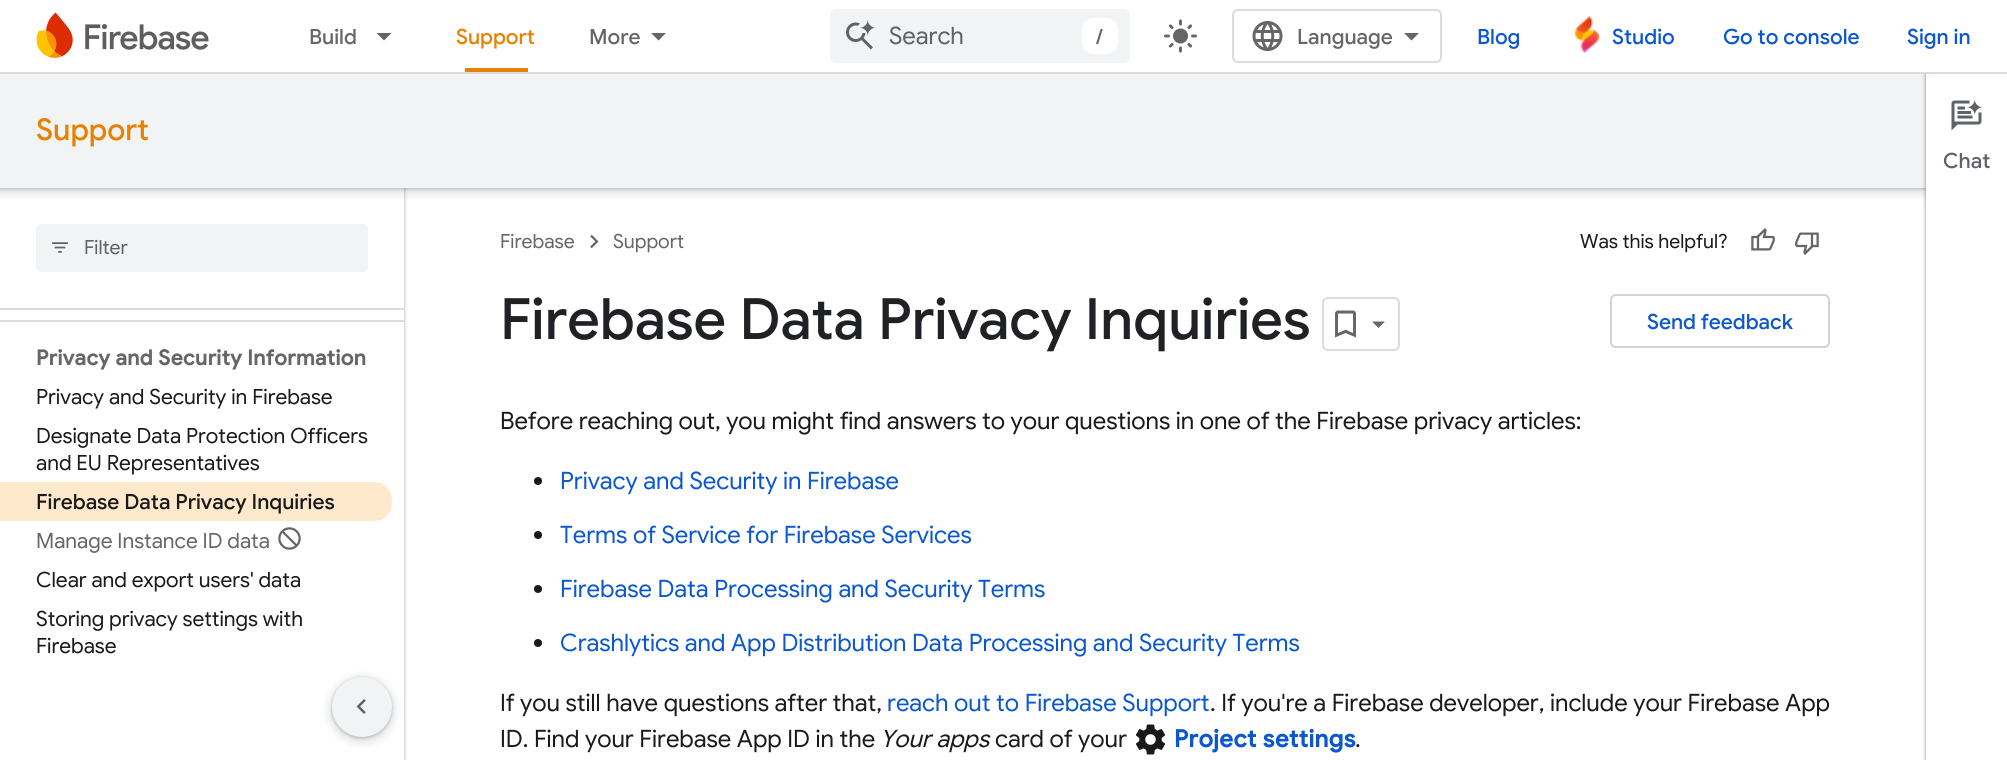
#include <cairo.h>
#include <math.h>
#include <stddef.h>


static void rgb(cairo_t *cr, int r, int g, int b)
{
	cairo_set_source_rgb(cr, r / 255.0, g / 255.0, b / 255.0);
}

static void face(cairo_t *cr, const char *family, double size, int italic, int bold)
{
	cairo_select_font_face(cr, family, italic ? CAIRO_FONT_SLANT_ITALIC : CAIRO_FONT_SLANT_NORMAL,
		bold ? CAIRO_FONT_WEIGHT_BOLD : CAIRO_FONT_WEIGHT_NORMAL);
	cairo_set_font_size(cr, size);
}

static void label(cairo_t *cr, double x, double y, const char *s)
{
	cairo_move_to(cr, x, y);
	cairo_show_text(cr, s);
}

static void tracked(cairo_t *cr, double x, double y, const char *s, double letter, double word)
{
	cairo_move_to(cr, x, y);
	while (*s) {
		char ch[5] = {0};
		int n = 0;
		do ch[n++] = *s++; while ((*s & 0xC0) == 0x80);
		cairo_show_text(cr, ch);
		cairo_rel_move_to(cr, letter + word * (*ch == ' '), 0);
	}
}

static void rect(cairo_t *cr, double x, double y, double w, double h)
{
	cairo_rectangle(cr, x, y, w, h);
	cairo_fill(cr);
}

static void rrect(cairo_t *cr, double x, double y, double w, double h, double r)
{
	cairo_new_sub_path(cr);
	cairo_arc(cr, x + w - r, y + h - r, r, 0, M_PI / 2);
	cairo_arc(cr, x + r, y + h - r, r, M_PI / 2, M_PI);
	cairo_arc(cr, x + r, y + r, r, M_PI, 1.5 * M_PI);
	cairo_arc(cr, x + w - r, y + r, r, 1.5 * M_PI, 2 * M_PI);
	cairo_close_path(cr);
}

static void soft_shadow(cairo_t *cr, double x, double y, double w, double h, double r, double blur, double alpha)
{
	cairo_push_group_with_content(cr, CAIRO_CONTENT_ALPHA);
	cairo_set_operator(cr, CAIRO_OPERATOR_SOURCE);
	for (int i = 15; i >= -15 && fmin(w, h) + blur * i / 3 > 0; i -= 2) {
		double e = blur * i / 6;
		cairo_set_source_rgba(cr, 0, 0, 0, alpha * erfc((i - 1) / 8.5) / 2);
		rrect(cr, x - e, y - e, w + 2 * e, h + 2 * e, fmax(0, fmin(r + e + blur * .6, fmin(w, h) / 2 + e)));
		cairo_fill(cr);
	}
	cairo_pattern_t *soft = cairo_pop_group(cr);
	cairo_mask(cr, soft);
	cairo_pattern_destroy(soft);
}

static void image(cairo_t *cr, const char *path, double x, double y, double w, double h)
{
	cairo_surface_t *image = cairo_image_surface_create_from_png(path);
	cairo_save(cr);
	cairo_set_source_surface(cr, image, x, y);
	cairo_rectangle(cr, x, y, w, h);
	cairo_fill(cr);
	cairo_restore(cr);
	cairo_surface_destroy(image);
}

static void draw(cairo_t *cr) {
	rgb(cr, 255, 255, 255);
	cairo_paint(cr);
	rgb(cr, 60, 64, 67);
	soft_shadow(cr, -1, 0, 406, 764, 0, 2, 0.15);
	soft_shadow(cr, 0, 2, 404, 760, 0, 1.5, 0.3);
	rgb(cr, 255, 255, 255);
	rect(cr, 0, 310, 404, 450);
	rect(cr, 0, 188, 404, 120);
	rgb(cr, 60, 64, 67);
	soft_shadow(cr, -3, 74, 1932, 120, 0, 4.5, 0.15);
	soft_shadow(cr, 0, 75, 1926, 114, 0, 1.5, 0.3);
	rgb(cr, 241, 243, 244);
	rect(cr, 0, 74, 1926, 114);
	rgb(cr, 0, 0, 0);
	soft_shadow(cr, 1925, 72, 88, 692, 0, 2, 0.15);
	soft_shadow(cr, 1926, 74, 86, 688, 0, 1.5, 0.3);
	rgb(cr, 255, 255, 255);
	rect(cr, 0, 0, 2007, 72);
	rgb(cr, 218, 220, 224);
	rect(cr, 0, 72, 2007, 2);
	image(cr, "image0.png", 36, 12, 173, 46);
	face(cr, "Google Sans Medium", 21, 0, 0);
	rgb(cr, 102, 102, 102);
	label(cr, 309, 44, "Build");
	cairo_new_path(cr);
	cairo_move_to(cr, 376.5, 33);
	cairo_line_to(cr, 391.5, 33);
	cairo_line_to(cr, 384, 40.5);
	cairo_close_path(cr);
	cairo_fill(cr);
	rgb(cr, 232, 128, 0);
	label(cr, 456, 44, "Support");
	rect(cr, 465, 68, 63, 4);
	rgb(cr, 102, 102, 102);
	label(cr, 589, 44, "More");
	cairo_new_path(cr);
	cairo_move_to(cr, 651, 33);
	cairo_line_to(cr, 666, 33);
	cairo_line_to(cr, 658.5, 40.5);
	cairo_close_path(cr);
	cairo_fill(cr);
	rgb(cr, 241, 243, 244);
	rrect(cr, 830, 9, 300, 54, 6);
	cairo_fill(cr);
	image(cr, "image1.png", 846, 20, 30, 30);
	face(cr, "Google Sans", 24, 0, 0);
	rgb(cr, 96, 97, 98);
	label(cr, 889, 44, "Search");
	rgb(cr, 255, 255, 255);
	rrect(cr, 1082, 18, 36, 36, 12);
	cairo_fill(cr);
	face(cr, "Google Sans Medium", 21, 0, 0);
	rgb(cr, 102, 102, 102);
	label(cr, 1096, 44, "/");
	image(cr, "image2.png", 1164, 19, 33, 34);
	rrect(cr, 1233, 10, 208, 52, 5);
	rgb(cr, 218, 220, 224);
	cairo_stroke(cr);
	image(cr, "image3.png", 1252, 21, 31, 30);
	rgb(cr, 102, 102, 102);
	label(cr, 1297, 44, "Language");
	cairo_new_path(cr);
	cairo_move_to(cr, 1411.5, 40.5);
	cairo_line_to(cr, 1404, 33);
	cairo_line_to(cr, 1419, 33);
	cairo_close_path(cr);
	cairo_fill(cr);
	rgb(cr, 11, 87, 208);
	label(cr, 1477, 44, "Blog");
	image(cr, "image4.png", 1574, 16, 26, 37);
	label(cr, 1612, 44, "Studio");
	label(cr, 1723, 44, "Go to console");
	label(cr, 1907, 44, "Sign in");
	face(cr, "Google Sans Medium", 30, 0, 0);
	rgb(cr, 232, 128, 0);
	label(cr, 36, 140, "Support");
	rgb(cr, 218, 220, 224);
	rect(cr, 0, 308, 404, 2);
	rgb(cr, 241, 243, 244);
	rrect(cr, 36, 224, 332, 48, 6);
	cairo_fill(cr);
	image(cr, "image5.png", 52, 242, 16, 11);
	face(cr, "Google Sans", 19.5, 0, 0);
	rgb(cr, 96, 97, 98);
	label(cr, 84, 254, "Filter");
	rgb(cr, 218, 220, 224);
	rect(cr, 0, 320, 404, 2);
	face(cr, "Google Sans", 21, 0, 1);
	rgb(cr, 102, 102, 102);
	tracked(cr, 36, 365, "Privacy and Security Information", 0.4, 0);
	face(cr, "Google Sans", 21, 0, 0);
	rgb(cr, 26, 26, 26);
	label(cr, 36, 404, "Privacy and Security in Firebase");
	label(cr, 36, 443, "Designate Data Protection Officers");
	label(cr, 36, 470, "and EU Representatives");
	rgb(cr, 255, 233, 205);
	cairo_new_path(cr);
	cairo_move_to(cr, 0, 482);
	cairo_line_to(cr, 374, 482);
	cairo_curve_to(cr, 384, 482, 392, 490, 392, 500);
	cairo_line_to(cr, 392, 503);
	cairo_curve_to(cr, 392, 513, 384, 521, 374, 521);
	cairo_line_to(cr, 0, 521);
	cairo_close_path(cr);
	cairo_fill(cr);
	face(cr, "Google Sans Medium", 21, 0, 0);
	rgb(cr, 26, 26, 26);
	label(cr, 36, 509, "Firebase Data Privacy Inquiries");
	face(cr, "Google Sans", 21, 0, 0);
	rgb(cr, 102, 102, 102);
	label(cr, 36, 548, "Manage Instance ID data");
	image(cr, "image6.png", 278, 527, 23, 23);
	rgb(cr, 26, 26, 26);
	label(cr, 36, 587, "Clear and export users' data");
	label(cr, 36, 626, "Storing privacy settings with");
	label(cr, 36, 653, "Firebase");
	rgb(cr, 255, 255, 255);
	rect(cr, 1926, 74, 81, 686);
	image(cr, "image7.png", 1951, 99, 32, 32);
	face(cr, "Google Sans Medium", 21, 0, 0);
	rgb(cr, 95, 99, 104);
	label(cr, 1943, 168, "Chat");
	face(cr, "Google Sans", 19.5, 0, 0);
	rgb(cr, 102, 102, 102);
	label(cr, 500, 248, "Firebase");
	image(cr, "image8.png", 590, 234, 9, 15);
	label(cr, 613, 248, "Support");
	rgb(cr, 26, 26, 26);
	label(cr, 1580, 248, "Was this helpful?");
	image(cr, "image9.png", 1751, 228, 24, 23);
	image(cr, "image10.png", 1795, 232, 24, 23);
	face(cr, "Google Sans Medium", 57, 0, 0);
	rgb(cr, 32, 33, 36);
	label(cr, 500, 339, "Firebase Data Privacy Inquiries");
	rrect(cr, 1323, 298, 76, 52, 5);
	rgb(cr, 218, 220, 224);
	cairo_stroke(cr);
	image(cr, "image11.png", 1335, 310, 21, 28);
	rgb(cr, 102, 102, 102);
	cairo_new_path(cr);
	cairo_move_to(cr, 1372, 321.5);
	cairo_line_to(cr, 1385, 321.5);
	cairo_line_to(cr, 1378.5, 328);
	cairo_close_path(cr);
	cairo_fill(cr);
	rrect(cr, 1611, 295, 218, 52, 5);
	rgb(cr, 205, 210, 219);
	cairo_stroke(cr);
	face(cr, "Google Sans Medium", 21, 0, 0);
	rgb(cr, 11, 87, 208);
	label(cr, 1647, 329, "Send feedback");
	face(cr, "Google Sans", 24, 0, 0);
	rgb(cr, 26, 26, 26);
	label(cr, 500, 429, "Before reaching out, you might find answers to your questions in one of the Firebase privacy articles:");
	cairo_new_path(cr);
	cairo_arc(cr, 538, 481, 4, 0, 2 * M_PI);
	cairo_fill(cr);
	rgb(cr, 11, 87, 208);
	label(cr, 560, 489, "Privacy and Security in Firebase");
	rgb(cr, 26, 26, 26);
	cairo_new_path(cr);
	cairo_arc(cr, 538, 535, 4, 0, 2 * M_PI);
	cairo_fill(cr);
	rgb(cr, 11, 87, 208);
	label(cr, 560, 543, "Terms of Service for Firebase Services");
	rgb(cr, 26, 26, 26);
	cairo_new_path(cr);
	cairo_arc(cr, 538, 589, 4, 0, 2 * M_PI);
	cairo_fill(cr);
	rgb(cr, 11, 87, 208);
	label(cr, 560, 597, "Firebase Data Processing and Security Terms");
	rgb(cr, 26, 26, 26);
	cairo_new_path(cr);
	cairo_arc(cr, 538, 643, 4, 0, 2 * M_PI);
	cairo_fill(cr);
	rgb(cr, 11, 87, 208);
	label(cr, 560, 651, "Crashlytics and App Distribution Data Processing and Security Terms");
	rgb(cr, 26, 26, 26);
	label(cr, 500, 711, "If you still have questions after that,");
	rgb(cr, 11, 87, 208);
	label(cr, 887, 711, "reach out to Firebase Support");
	rgb(cr, 26, 26, 26);
	label(cr, 1210, 711, ". If you're a Firebase developer, include your Firebase App");
	label(cr, 500, 747, "ID. Find your Firebase App ID in the");
	face(cr, "Google Sans", 24, 1, 0);
	label(cr, 880, 747, "Your apps");
	face(cr, "Google Sans", 24, 0, 0);
	label(cr, 995, 747, "card of your");
	image(cr, "image12.png", 1135, 724, 31, 31);
	face(cr, "Google Sans", 24, 0, 1);
	rgb(cr, 11, 87, 208);
	tracked(cr, 1174, 747, "Project settings", 0.4, 0);
	face(cr, "Google Sans", 24, 0, 0);
	rgb(cr, 26, 26, 26);
	label(cr, 1355, 747, ".");
	rgb(cr, 60, 64, 67);
	soft_shadow(cr, 329, 677, 66, 66, 33, 4.5, 0.15);
	soft_shadow(cr, 332, 678, 60, 60, 30, 1.5, 0.3);
	rgb(cr, 241, 243, 244);
	cairo_arc(cr, 362, 707, 30, 0, 2 * M_PI);
	cairo_fill(cr);
	image(cr, "image13.png", 356, 699, 10, 15);
}

int main(void) {
	cairo_surface_t *surface = cairo_image_surface_create(CAIRO_FORMAT_RGB24, 2007, 760);
	cairo_t *cr = cairo_create(surface);
	cairo_font_options_t *options = cairo_font_options_create();
	cairo_font_options_set_hint_metrics(options, CAIRO_HINT_METRICS_OFF);
	cairo_font_options_set_hint_style(options, CAIRO_HINT_STYLE_NONE);
	cairo_set_font_options(cr, options);
	cairo_set_miter_limit(cr, 4);
	draw(cr);
	cairo_surface_write_to_png(surface, "render.png");
	cairo_font_options_destroy(options);
	cairo_destroy(cr);
	cairo_surface_destroy(surface);
	return 0;
}
